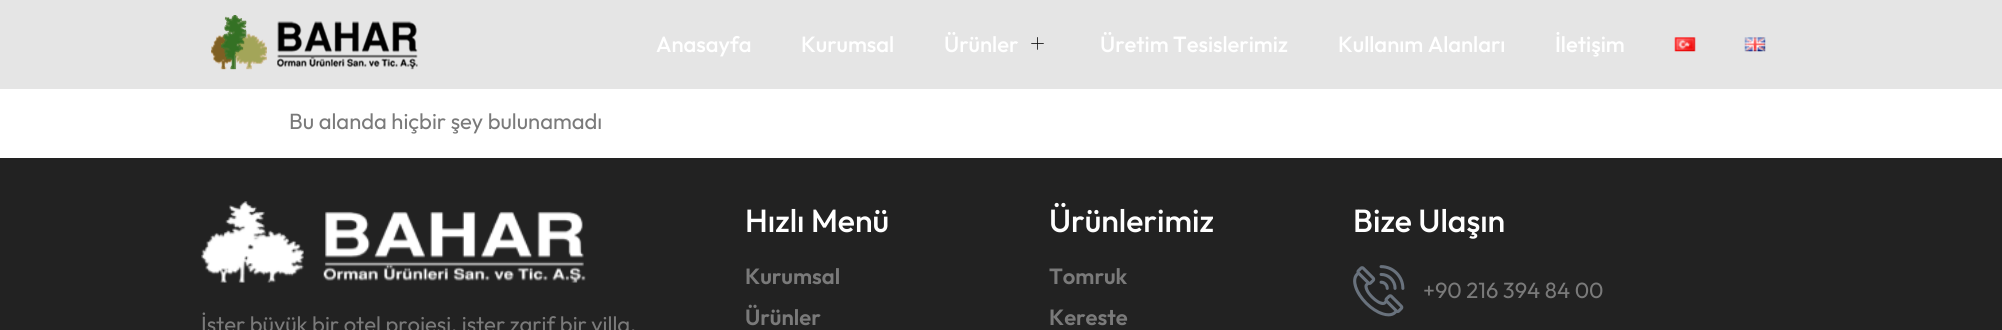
#include <cairo.h>
#include <math.h>
#include <stddef.h>


static void rgb(cairo_t *cr, int r, int g, int b)
{
	cairo_set_source_rgb(cr, r / 255.0, g / 255.0, b / 255.0);
}

static void face(cairo_t *cr, const char *family, double size, int italic, int bold)
{
	cairo_select_font_face(cr, family, italic ? CAIRO_FONT_SLANT_ITALIC : CAIRO_FONT_SLANT_NORMAL,
		bold ? CAIRO_FONT_WEIGHT_BOLD : CAIRO_FONT_WEIGHT_NORMAL);
	cairo_set_font_size(cr, size);
}

static void label(cairo_t *cr, double x, double y, const char *s)
{
	cairo_move_to(cr, x, y);
	cairo_show_text(cr, s);
}

static void rect(cairo_t *cr, double x, double y, double w, double h)
{
	cairo_rectangle(cr, x, y, w, h);
	cairo_fill(cr);
}

static void image(cairo_t *cr, const char *path, double x, double y, double w, double h)
{
	cairo_surface_t *image = cairo_image_surface_create_from_png(path);
	cairo_save(cr);
	cairo_set_source_surface(cr, image, x, y);
	cairo_rectangle(cr, x, y, w, h);
	cairo_fill(cr);
	cairo_restore(cr);
	cairo_surface_destroy(image);
}

static void draw(cairo_t *cr) {
	rgb(cr, 255, 255, 255);
	cairo_paint(cr);
	rgb(cr, 229, 229, 229);
	rect(cr, 0, 0, 2002, 89);
	image(cr, "image0.png", 211, 15, 207, 55);
	face(cr, "Outfit Medium", 22, 0, 0);
	rgb(cr, 255, 255, 255);
	label(cr, 656, 52, "Anasayfa");
	label(cr, 801, 52, "Kurumsal");
	label(cr, 944, 52, "Ürünler");
	image(cr, "image1.png", 1031, 37, 13, 13);
	label(cr, 1100, 52, "Üretim Tesislerimiz");
	label(cr, 1338, 52, "Kullanım Alanları");
	label(cr, 1555, 52, "İletişim");
	image(cr, "image2.png", 1674, 37, 22, 15);
	image(cr, "image3.png", 1744, 37, 22, 15);
	face(cr, "Outfit", 22, 0, 0);
	rgb(cr, 122, 122, 122);
	label(cr, 289, 129, "Bu alanda hiçbir şey bulunamadı");
	rgb(cr, 34, 34, 34);
	rect(cr, 0, 158, 2002, 172);
	face(cr, "Outfit Medium", 32, 0, 0);
	rgb(cr, 255, 255, 255);
	label(cr, 745, 232, "Hızlı Menü");
	face(cr, "Outfit SemiBold", 22, 0, 0);
	rgb(cr, 122, 122, 122);
	label(cr, 745, 284, "Kurumsal");
	label(cr, 745, 325, "Ürünler");
	face(cr, "Outfit Medium", 32, 0, 0);
	rgb(cr, 255, 255, 255);
	label(cr, 1049, 232, "Ürünlerimiz");
	face(cr, "Outfit SemiBold", 22, 0, 0);
	rgb(cr, 122, 122, 122);
	label(cr, 1049, 284, "Tomruk");
	label(cr, 1049, 325, "Kereste");
	face(cr, "Outfit Medium", 32, 0, 0);
	rgb(cr, 255, 255, 255);
	label(cr, 1353, 232, "Bize Ulaşın");
	image(cr, "image4.png", 1353, 265, 52, 52);
	face(cr, "Outfit", 22, 0, 0);
	rgb(cr, 122, 122, 122);
	label(cr, 1423, 298, "+90 216 394 84 00");
	image(cr, "image5.png", 201, 201, 385, 82);
	label(cr, 201, 332, "İster büyük bir otel projesi, ister zarif bir villa,");
}

int main(void) {
	cairo_surface_t *surface = cairo_image_surface_create(CAIRO_FORMAT_RGB24, 2002, 330);
	cairo_t *cr = cairo_create(surface);
	cairo_font_options_t *options = cairo_font_options_create();
	cairo_font_options_set_hint_metrics(options, CAIRO_HINT_METRICS_OFF);
	cairo_font_options_set_hint_style(options, CAIRO_HINT_STYLE_NONE);
	cairo_set_font_options(cr, options);
	cairo_set_miter_limit(cr, 4);
	draw(cr);
	cairo_surface_write_to_png(surface, "render.png");
	cairo_font_options_destroy(options);
	cairo_destroy(cr);
	cairo_surface_destroy(surface);
	return 0;
}
